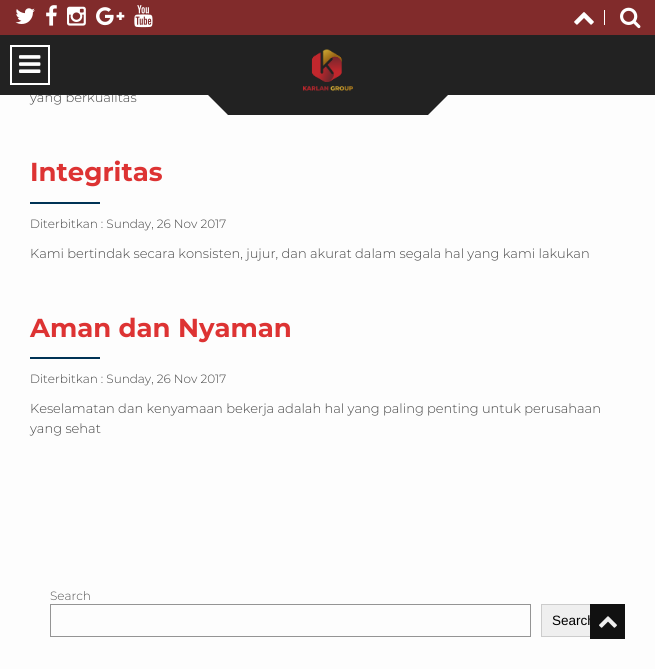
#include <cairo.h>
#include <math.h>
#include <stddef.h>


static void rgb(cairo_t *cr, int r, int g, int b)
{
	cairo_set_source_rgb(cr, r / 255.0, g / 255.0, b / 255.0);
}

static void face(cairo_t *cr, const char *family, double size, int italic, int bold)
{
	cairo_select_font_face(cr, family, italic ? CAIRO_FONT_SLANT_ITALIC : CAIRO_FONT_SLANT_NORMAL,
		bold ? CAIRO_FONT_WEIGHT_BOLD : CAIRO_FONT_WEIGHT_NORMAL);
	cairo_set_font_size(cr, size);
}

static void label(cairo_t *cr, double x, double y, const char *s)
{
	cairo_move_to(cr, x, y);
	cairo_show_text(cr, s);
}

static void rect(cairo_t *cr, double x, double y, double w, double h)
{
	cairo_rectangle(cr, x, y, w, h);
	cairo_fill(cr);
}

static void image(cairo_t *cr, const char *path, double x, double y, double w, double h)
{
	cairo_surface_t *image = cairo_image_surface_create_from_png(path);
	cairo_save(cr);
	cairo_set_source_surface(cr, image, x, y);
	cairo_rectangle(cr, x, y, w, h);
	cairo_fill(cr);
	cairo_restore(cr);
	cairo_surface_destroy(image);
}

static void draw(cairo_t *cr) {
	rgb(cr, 253, 253, 253);
	cairo_paint(cr);
	face(cr, "Montserrat Light", 13, 0, 0);
	rgb(cr, 68, 68, 68);
	label(cr, 30, 102, "yang berkualitas");
	rgb(cr, 34, 34, 34);
	rect(cr, 0, 35, 655, 60);
	rgb(cr, 129, 43, 43);
	rect(cr, 0, 0, 655, 35);
	image(cr, "image0.png", 15, 8, 20, 16);
	image(cr, "image1.png", 46, 5, 11, 21);
	image(cr, "image2.png", 67, 6, 19, 20);
	image(cr, "image3.png", 96, 7, 29, 19);
	image(cr, "image4.png", 134, 5, 19, 23);
	image(cr, "image5.png", 574, 12, 20, 13);
	rgb(cr, 255, 255, 255);
	rect(cr, 604, 10, 1, 15);
	image(cr, "image6.png", 620, 7, 21, 22);
	cairo_rectangle(cr, 11, 46, 38, 38);
	cairo_stroke(cr);
	image(cr, "image7.png", 19, 55, 22, 18);
	rgb(cr, 34, 34, 34);
	rect(cr, 228, 95, 200, 20);
	image(cr, "image8.png", 303, 49, 50, 42);
	cairo_new_path(cr);
	cairo_move_to(cr, 208, 95);
	cairo_line_to(cr, 228, 95);
	cairo_line_to(cr, 228, 115);
	cairo_close_path(cr);
	cairo_fill(cr);
	cairo_new_path(cr);
	cairo_move_to(cr, 428, 95);
	cairo_line_to(cr, 448, 95);
	cairo_line_to(cr, 428, 115);
	cairo_close_path(cr);
	cairo_fill(cr);
	face(cr, "Montserrat", 26, 0, 1);
	rgb(cr, 221, 51, 51);
	label(cr, 30, 181, "Integritas");
	rgb(cr, 0, 51, 85);
	rect(cr, 30, 202, 70, 2);
	face(cr, "Montserrat Light", 12, 0, 0);
	rgb(cr, 68, 68, 68);
	label(cr, 30, 228, "Diterbitkan : Sunday, 26 Nov 2017");
	face(cr, "Montserrat Light", 13, 0, 0);
	label(cr, 30, 258, "Kami bertindak secara konsisten, jujur, dan akurat dalam segala hal yang kami lakukan");
	face(cr, "Montserrat", 26, 0, 1);
	rgb(cr, 221, 51, 51);
	label(cr, 30, 337, "Aman dan Nyaman");
	rgb(cr, 0, 51, 85);
	rect(cr, 30, 357, 70, 2);
	face(cr, "Montserrat Light", 12, 0, 0);
	rgb(cr, 68, 68, 68);
	label(cr, 30, 383, "Diterbitkan : Sunday, 26 Nov 2017");
	face(cr, "Montserrat Light", 13, 0, 0);
	label(cr, 30, 413, "Keselamatan dan kenyamaan bekerja adalah hal yang paling penting untuk perusahaan");
	label(cr, 30, 433, "yang sehat");
	face(cr, "Montserrat Light", 12, 0, 0);
	rgb(cr, 85, 85, 85);
	label(cr, 50, 600, "Search");
	cairo_rectangle(cr, 50.5, 604.5, 480, 32);
	rgb(cr, 148, 148, 148);
	cairo_set_line_width(cr, 1);
	cairo_stroke(cr);
	rgb(cr, 239, 239, 239);
	rect(cr, 542, 605, 48, 31);
	cairo_rectangle(cr, 541.5, 604.5, 63, 32);
	rgb(cr, 204, 204, 204);
	cairo_stroke(cr);
	face(cr, "Liberation Sans", 13.5, 0, 0);
	rgb(cr, 0, 0, 0);
	label(cr, 552, 625, "Search");
	rgb(cr, 17, 17, 17);
	rect(cr, 590, 604, 35, 35);
	image(cr, "image9.png", 599, 616, 18, 12);
}

int main(void) {
	cairo_surface_t *surface = cairo_image_surface_create(CAIRO_FORMAT_RGB24, 655, 669);
	cairo_t *cr = cairo_create(surface);
	cairo_font_options_t *options = cairo_font_options_create();
	cairo_font_options_set_hint_metrics(options, CAIRO_HINT_METRICS_OFF);
	cairo_font_options_set_hint_style(options, CAIRO_HINT_STYLE_NONE);
	cairo_set_font_options(cr, options);
	cairo_set_miter_limit(cr, 4);
	draw(cr);
	cairo_surface_write_to_png(surface, "render.png");
	cairo_font_options_destroy(options);
	cairo_destroy(cr);
	cairo_surface_destroy(surface);
	return 0;
}
